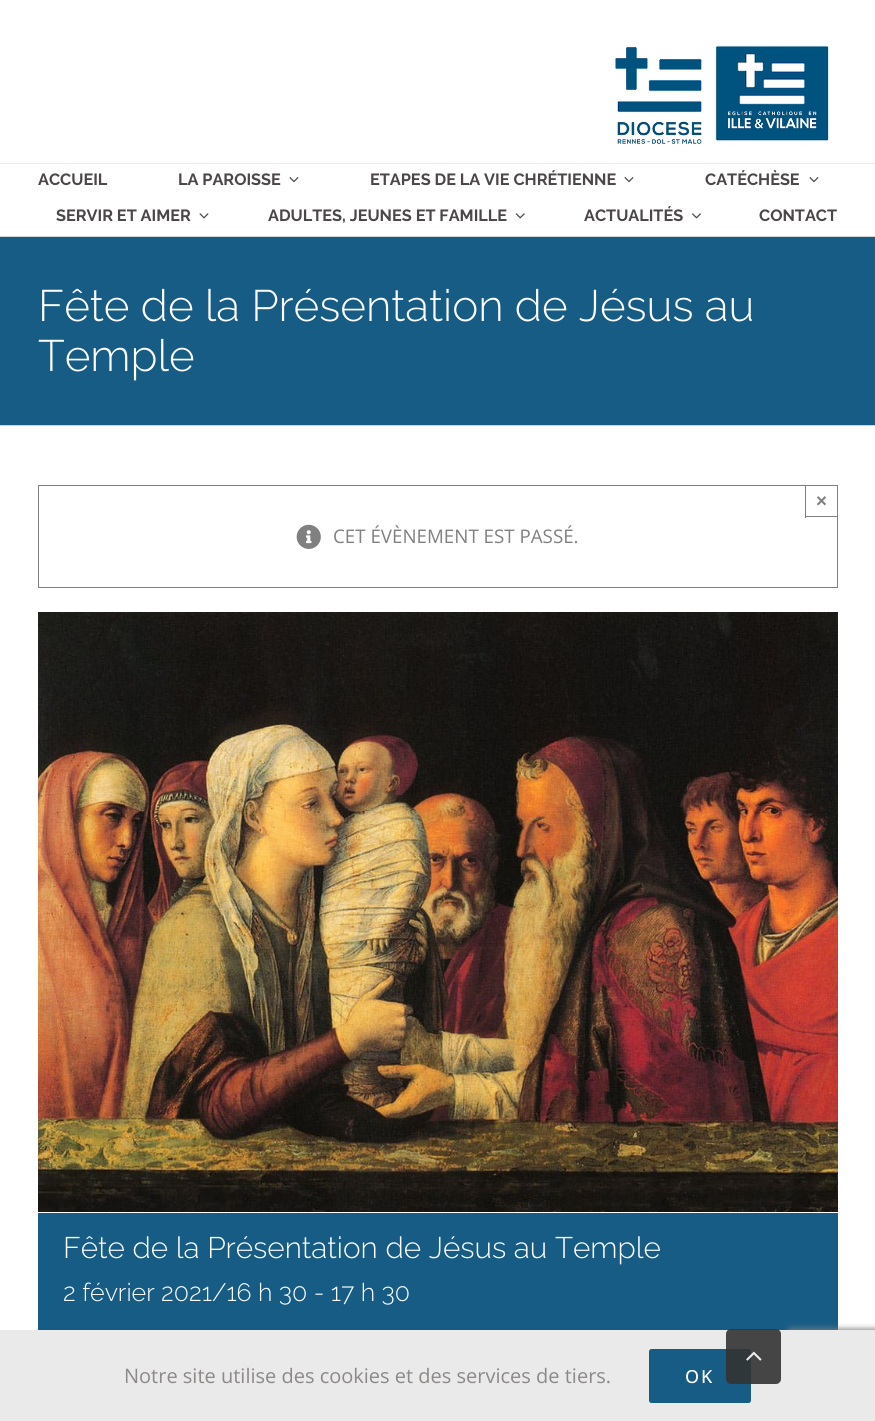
#include <cairo.h>
#include <math.h>
#include <stddef.h>


static void rgb(cairo_t *cr, int r, int g, int b)
{
	cairo_set_source_rgb(cr, r / 255.0, g / 255.0, b / 255.0);
}

static void face(cairo_t *cr, const char *family, double size, int italic, int bold)
{
	cairo_select_font_face(cr, family, italic ? CAIRO_FONT_SLANT_ITALIC : CAIRO_FONT_SLANT_NORMAL,
		bold ? CAIRO_FONT_WEIGHT_BOLD : CAIRO_FONT_WEIGHT_NORMAL);
	cairo_set_font_size(cr, size);
}

static void label(cairo_t *cr, double x, double y, const char *s)
{
	cairo_move_to(cr, x, y);
	cairo_show_text(cr, s);
}

static void tracked(cairo_t *cr, double x, double y, const char *s, double letter, double word)
{
	cairo_move_to(cr, x, y);
	while (*s) {
		char ch[5] = {0};
		int n = 0;
		do ch[n++] = *s++; while ((*s & 0xC0) == 0x80);
		cairo_show_text(cr, ch);
		cairo_rel_move_to(cr, letter + word * (*ch == ' '), 0);
	}
}

static void rect(cairo_t *cr, double x, double y, double w, double h)
{
	cairo_rectangle(cr, x, y, w, h);
	cairo_fill(cr);
}

static void rrect(cairo_t *cr, double x, double y, double w, double h, double r)
{
	cairo_new_sub_path(cr);
	cairo_arc(cr, x + w - r, y + h - r, r, 0, M_PI / 2);
	cairo_arc(cr, x + r, y + h - r, r, M_PI / 2, M_PI);
	cairo_arc(cr, x + r, y + r, r, M_PI, 1.5 * M_PI);
	cairo_arc(cr, x + w - r, y + r, r, 1.5 * M_PI, 2 * M_PI);
	cairo_close_path(cr);
}

static void soft_shadow(cairo_t *cr, double x, double y, double w, double h, double r, double blur, double alpha)
{
	cairo_push_group_with_content(cr, CAIRO_CONTENT_ALPHA);
	cairo_set_operator(cr, CAIRO_OPERATOR_SOURCE);
	for (int i = 15; i >= -15 && fmin(w, h) + blur * i / 3 > 0; i -= 2) {
		double e = blur * i / 6;
		cairo_set_source_rgba(cr, 0, 0, 0, alpha * erfc((i - 1) / 8.5) / 2);
		rrect(cr, x - e, y - e, w + 2 * e, h + 2 * e, fmax(0, fmin(r + e + blur * .6, fmin(w, h) / 2 + e)));
		cairo_fill(cr);
	}
	cairo_pattern_t *soft = cairo_pop_group(cr);
	cairo_mask(cr, soft);
	cairo_pattern_destroy(soft);
}

static void image(cairo_t *cr, const char *path, double x, double y, double w, double h)
{
	cairo_surface_t *image = cairo_image_surface_create_from_png(path);
	cairo_save(cr);
	cairo_set_source_surface(cr, image, x, y);
	cairo_rectangle(cr, x, y, w, h);
	cairo_fill(cr);
	cairo_restore(cr);
	cairo_surface_destroy(image);
}

static void draw(cairo_t *cr) {
	rgb(cr, 22, 92, 133);
	cairo_paint(cr);
	rgb(cr, 255, 255, 255);
	rect(cr, 0, 0, 875, 163);
	rgb(cr, 237, 237, 237);
	rect(cr, 0, 163, 875, 1);
	image(cr, "image0.png", 615, 45, 214, 101);
	rgb(cr, 255, 255, 255);
	rect(cr, 0, 164, 875, 72);
	face(cr, "Raleway", 16.25, 0, 1);
	rgb(cr, 76, 70, 72);
	label(cr, 38, 185, "ACCUEIL");
	label(cr, 178, 185, "LA PAROISSE");
	image(cr, "image1.png", 289, 177, 10, 6);
	label(cr, 370, 185, "ETAPES DE LA VIE CHRÉTIENNE");
	image(cr, "image1.png", 624, 177, 10, 6);
	label(cr, 705, 185, "CATÉCHÈSE");
	image(cr, "image1.png", 809, 177, 10, 6);
	label(cr, 56, 221, "SERVIR ET AIMER");
	image(cr, "image2.png", 199, 213, 10, 6);
	label(cr, 268, 221, "ADULTES, JEUNES ET FAMILLE");
	image(cr, "image3.png", 515, 213, 10, 6);
	label(cr, 584, 221, "ACTUALITÉS");
	image(cr, "image4.png", 692, 213, 9, 6);
	label(cr, 759, 221, "CONTACT");
	rgb(cr, 210, 211, 212);
	rect(cr, 0, 236, 875, 1);
	rect(cr, 0, 425, 875, 1);
	face(cr, "Raleway Light", 44, 0, 0);
	rgb(cr, 255, 255, 255);
	label(cr, 38, 321, "Fête de la Présentation de Jésus au");
	label(cr, 38, 371, "Temple");
	rect(cr, 0, 426, 875, 904);
	cairo_rectangle(cr, 38.5, 485.5, 799, 102);
	rgb(cr, 128, 128, 128);
	cairo_set_line_width(cr, 1);
	cairo_stroke(cr);
	rect(cr, 805, 516, 33, 1);
	rect(cr, 805, 485, 1, 33);
	face(cr, "Liberation Sans", 18.75, 0, 1);
	label(cr, 816, 507, "×");
	image(cr, "image5.png", 296, 524, 25, 25);
	face(cr, "Open Sans", 18.75, 0, 0);
	label(cr, 333, 543, "CET ÉVÈNEMENT EST PASSÉ.");
	image(cr, "image6.png", 38, 612, 800, 600);
	rgb(cr, 22, 92, 133);
	rect(cr, 38, 1213, 800, 117);
	face(cr, "Raleway Light", 29.75, 0, 0);
	rgb(cr, 255, 255, 255);
	label(cr, 63, 1258, "Fête de la Présentation de Jésus au Temple");
	face(cr, "Raleway Light", 25, 0, 0);
	label(cr, 63, 1301, "2 février 2021/16 h 30 - 17 h 30");
	rgb(cr, 128, 128, 128);
	soft_shadow(cr, 788, 1329, 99, 75, 2.5, 3, 1);
	rgb(cr, 234, 234, 234);
	rect(cr, 0, 1330, 875, 91);
	face(cr, "Open Sans", 20, 0, 0);
	rgb(cr, 140, 137, 137);
	label(cr, 124, 1383, "Notre site utilise des cookies et des services de tiers.");
	rgb(cr, 22, 92, 133);
	rrect(cr, 649, 1349, 102, 54, 2.5);
	cairo_fill(cr);
	face(cr, "Open Sans Medium", 18, 0, 0);
	rgb(cr, 255, 255, 255);
	tracked(cr, 685, 1383, "OK", 2, 0);
	cairo_set_source_rgba(cr, 0.2, 0.2, 0.2, 0.9);
	rrect(cr, 726, 1329, 55, 55, 5);
	cairo_fill(cr);
	image(cr, "image7.png", 746, 1351, 16, 10);
}

int main(void) {
	cairo_surface_t *surface = cairo_image_surface_create(CAIRO_FORMAT_RGB24, 875, 1421);
	cairo_t *cr = cairo_create(surface);
	cairo_font_options_t *options = cairo_font_options_create();
	cairo_font_options_set_hint_metrics(options, CAIRO_HINT_METRICS_OFF);
	cairo_font_options_set_hint_style(options, CAIRO_HINT_STYLE_NONE);
	cairo_set_font_options(cr, options);
	cairo_set_miter_limit(cr, 4);
	draw(cr);
	cairo_surface_write_to_png(surface, "render.png");
	cairo_font_options_destroy(options);
	cairo_destroy(cr);
	cairo_surface_destroy(surface);
	return 0;
}
